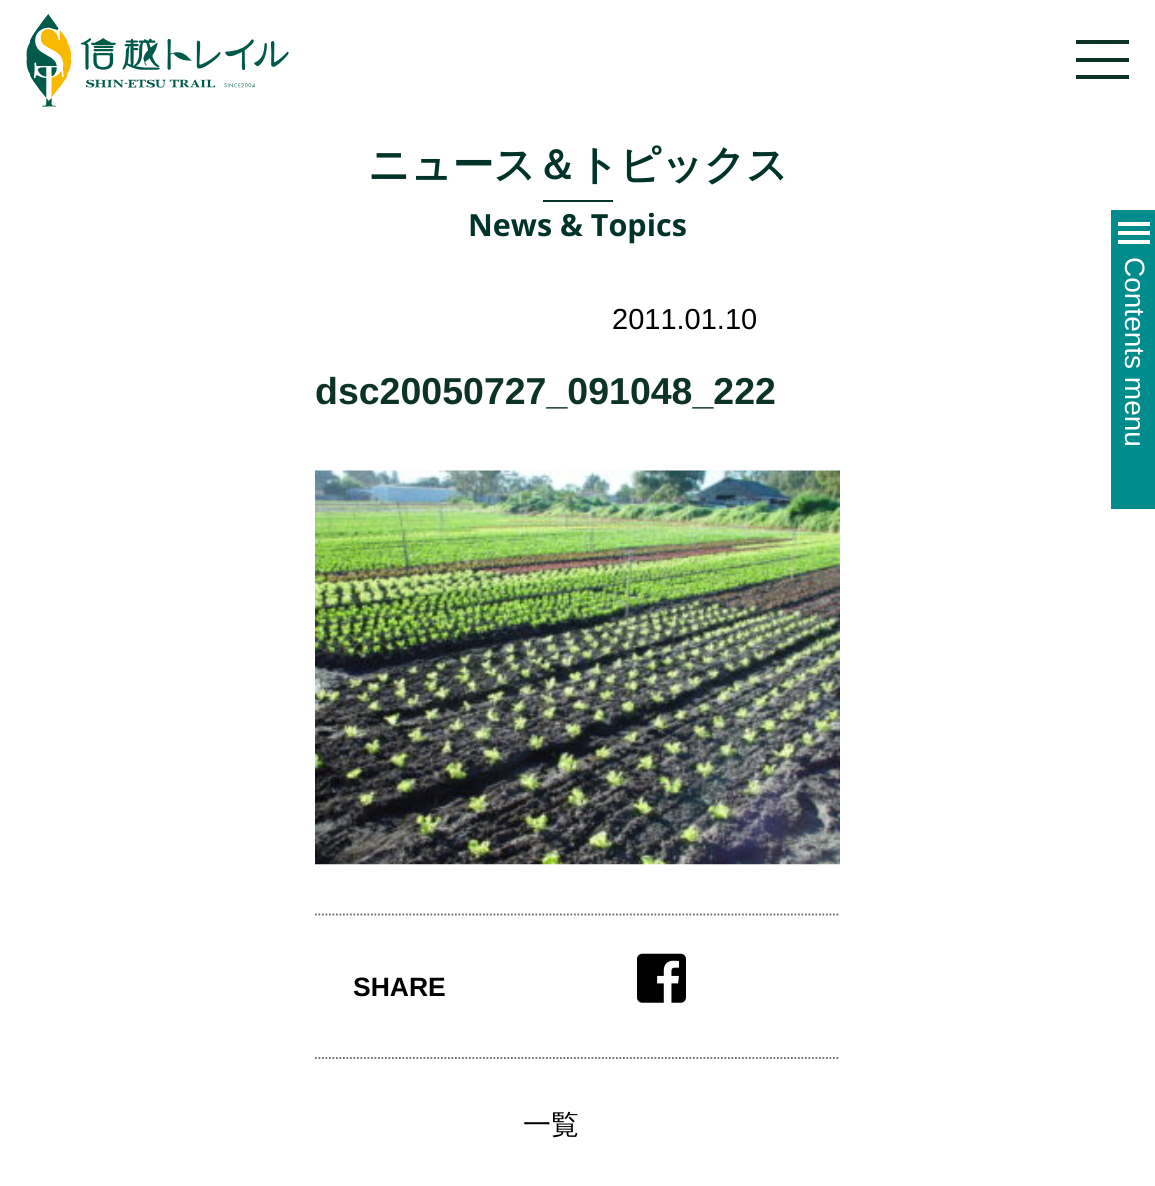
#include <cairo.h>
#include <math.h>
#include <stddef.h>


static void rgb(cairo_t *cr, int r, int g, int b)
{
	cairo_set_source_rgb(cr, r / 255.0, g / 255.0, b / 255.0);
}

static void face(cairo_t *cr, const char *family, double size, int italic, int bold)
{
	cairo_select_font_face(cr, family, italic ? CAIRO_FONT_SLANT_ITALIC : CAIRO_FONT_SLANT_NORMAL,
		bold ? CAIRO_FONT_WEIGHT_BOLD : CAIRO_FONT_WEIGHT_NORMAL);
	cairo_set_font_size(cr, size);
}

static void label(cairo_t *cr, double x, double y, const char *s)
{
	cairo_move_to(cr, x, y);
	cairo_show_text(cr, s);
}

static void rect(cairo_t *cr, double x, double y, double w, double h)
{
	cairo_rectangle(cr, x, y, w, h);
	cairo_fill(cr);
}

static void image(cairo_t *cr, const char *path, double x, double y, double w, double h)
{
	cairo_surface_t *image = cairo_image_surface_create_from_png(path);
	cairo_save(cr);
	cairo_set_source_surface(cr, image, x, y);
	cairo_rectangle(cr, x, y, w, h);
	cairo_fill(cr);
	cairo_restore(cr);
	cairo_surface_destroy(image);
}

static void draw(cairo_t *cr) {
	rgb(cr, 255, 255, 255);
	cairo_paint(cr);
	image(cr, "image0.png", 26, 14, 263, 93);
	rgb(cr, 13, 51, 39);
	rect(cr, 1076, 58, 53, 4);
	rect(cr, 1076, 40, 53, 4);
	rect(cr, 1076, 75, 53, 4);
	face(cr, "WenQuanYi Zen Hei", 41.25, 0, 1);
	rgb(cr, 2, 51, 40);
	label(cr, 368, 179, "ニュース＆トピックス");
	rect(cr, 543, 200, 70, 2);
	face(cr, "Open Sans", 30.5, 0, 1);
	label(cr, 468, 236, "News & Topics");
	face(cr, "Liberation Sans", 29, 0, 0);
	rgb(cr, 0, 0, 0);
	label(cr, 612, 329, "2011.01.10");
	face(cr, "Liberation Sans", 37.5, 0, 1);
	rgb(cr, 13, 51, 39);
	label(cr, 315, 404, "dsc20050727_091048_222");
	image(cr, "image1.png", 315, 470, 525, 395);
	cairo_new_path(cr);
	cairo_move_to(cr, 315, 914.5);
	cairo_line_to(cr, 840, 914.5);
	rgb(cr, 102, 102, 102);
	cairo_set_line_width(cr, 1.8);
	cairo_set_dash(cr, (double[]){1.75, 1.75}, 2, 0);
	cairo_stroke(cr);
	cairo_new_path(cr);
	cairo_move_to(cr, 315, 1058);
	cairo_line_to(cr, 840, 1058);
	cairo_stroke(cr);
	face(cr, "Liberation Sans", 26.5, 0, 1);
	rgb(cr, 0, 0, 0);
	label(cr, 353, 996, "SHARE");
	image(cr, "image2.png", 637, 953, 49, 50);
	face(cr, "WenQuanYi Zen Hei Medium", 28, 0, 0);
	label(cr, 523, 1134, "一覧");
	rgb(cr, 0, 140, 140);
	rect(cr, 1111, 210, 44, 299);
	rgb(cr, 255, 255, 255);
	rect(cr, 1118, 231, 32, 4);
	rect(cr, 1118, 222, 32, 4);
	rect(cr, 1118, 240, 32, 4);
	face(cr, "Liberation Sans", 28, 0, 0);
	cairo_save(cr);
	cairo_translate(cr, 1125, 257);
	cairo_rotate(cr, 90 * M_PI / 180);
	label(cr, 0, 0, "Contents menu");
	cairo_restore(cr);
}

int main(void) {
	cairo_surface_t *surface = cairo_image_surface_create(CAIRO_FORMAT_RGB24, 1155, 1186);
	cairo_t *cr = cairo_create(surface);
	cairo_font_options_t *options = cairo_font_options_create();
	cairo_font_options_set_hint_metrics(options, CAIRO_HINT_METRICS_OFF);
	cairo_font_options_set_hint_style(options, CAIRO_HINT_STYLE_NONE);
	cairo_set_font_options(cr, options);
	cairo_set_miter_limit(cr, 4);
	draw(cr);
	cairo_surface_write_to_png(surface, "render.png");
	cairo_font_options_destroy(options);
	cairo_destroy(cr);
	cairo_surface_destroy(surface);
	return 0;
}
